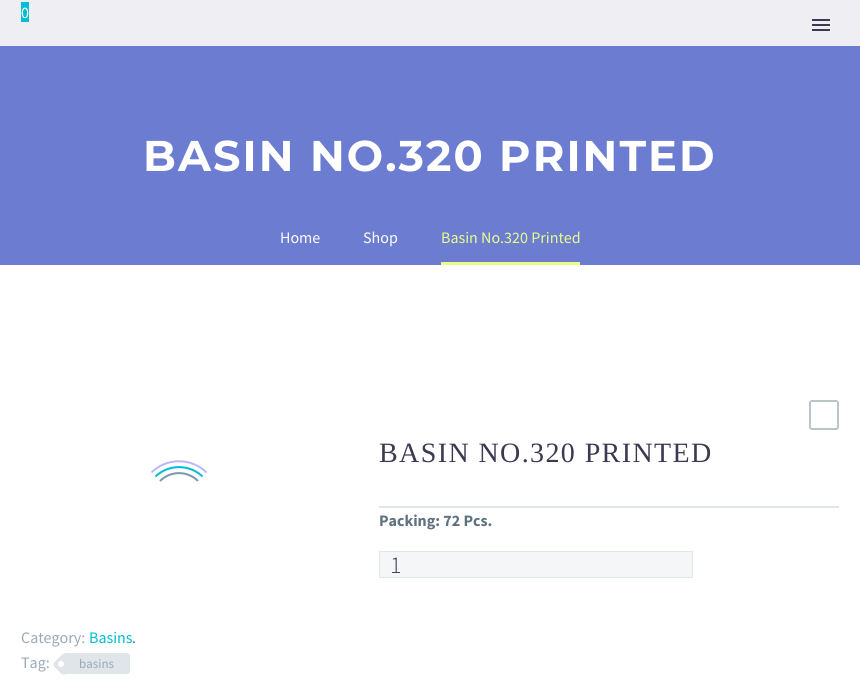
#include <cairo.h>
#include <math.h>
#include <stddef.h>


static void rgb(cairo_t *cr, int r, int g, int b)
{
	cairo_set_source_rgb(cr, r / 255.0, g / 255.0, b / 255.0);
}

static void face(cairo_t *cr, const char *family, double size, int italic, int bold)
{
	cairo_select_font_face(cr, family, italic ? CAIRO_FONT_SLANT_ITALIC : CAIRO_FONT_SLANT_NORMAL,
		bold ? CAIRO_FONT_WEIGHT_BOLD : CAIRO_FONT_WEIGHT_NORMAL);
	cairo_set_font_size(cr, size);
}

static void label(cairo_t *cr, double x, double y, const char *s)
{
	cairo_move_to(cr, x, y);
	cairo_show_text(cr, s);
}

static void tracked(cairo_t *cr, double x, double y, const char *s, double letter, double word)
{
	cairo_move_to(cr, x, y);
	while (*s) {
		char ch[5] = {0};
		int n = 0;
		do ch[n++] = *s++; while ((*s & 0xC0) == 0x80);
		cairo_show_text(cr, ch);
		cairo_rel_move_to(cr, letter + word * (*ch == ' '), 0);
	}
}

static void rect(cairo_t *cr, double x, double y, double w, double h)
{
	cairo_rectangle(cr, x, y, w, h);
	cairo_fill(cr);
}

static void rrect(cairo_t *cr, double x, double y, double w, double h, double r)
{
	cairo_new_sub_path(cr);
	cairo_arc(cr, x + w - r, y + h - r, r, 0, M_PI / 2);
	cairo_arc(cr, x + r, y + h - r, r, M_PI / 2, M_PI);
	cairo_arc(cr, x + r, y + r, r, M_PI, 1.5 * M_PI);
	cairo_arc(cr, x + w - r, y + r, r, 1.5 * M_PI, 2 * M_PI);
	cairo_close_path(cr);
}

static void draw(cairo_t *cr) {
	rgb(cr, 239, 238, 243);
	cairo_paint(cr);
	rgb(cr, 0, 188, 212);
	rect(cr, 21, 2, 8, 20);
	face(cr, "Source Sans Pro", 16, 0, 0);
	rgb(cr, 255, 255, 255);
	label(cr, 21, 18, "0");
	rgb(cr, 60, 57, 80);
	rect(cr, 812, 19, 18, 2);
	rect(cr, 812, 24, 18, 2);
	rect(cr, 812, 29, 18, 2);
	rgb(cr, 108, 124, 208);
	rect(cr, 0, 46, 860, 219);
	face(cr, "Montserrat", 43, 0, 1);
	rgb(cr, 255, 255, 255);
	tracked(cr, 143, 171, "BASIN NO.320 PRINTED", 2.1, 0);
	face(cr, "Source Sans Pro", 16, 0, 0);
	label(cr, 280, 243, "Home");
	label(cr, 363, 243, "Shop");
	rgb(cr, 231, 255, 137);
	rect(cr, 441, 262, 139, 3);
	label(cr, 441, 243, "Basin No.320 Printed");
	rgb(cr, 255, 255, 255);
	rect(cr, 0, 265, 860, 418);
	rrect(cr, 810, 401, 28, 28, 2);
	rgb(cr, 182, 198, 201);
	cairo_stroke(cr);
	face(cr, "Liberation Serif", 28, 0, 0);
	rgb(cr, 60, 57, 80);
	tracked(cr, 379, 462, "BASIN NO.320 PRINTED", 1.4, 0);
	rgb(cr, 223, 229, 232);
	rect(cr, 379, 506, 460, 2);
	face(cr, "Source Sans Pro", 16, 0, 1);
	rgb(cr, 95, 114, 127);
	label(cr, 379, 526, "Packing: 72 Pcs.");
	rgb(cr, 244, 246, 247);
	cairo_rectangle(cr, 379.5, 551.5, 313, 26);
	cairo_fill_preserve(cr);
	rgb(cr, 223, 229, 232);
	cairo_set_line_width(cr, 1);
	cairo_stroke(cr);
	face(cr, "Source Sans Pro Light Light", 24, 0, 0);
	rgb(cr, 60, 57, 80);
	label(cr, 390, 573, "1");
	cairo_new_path(cr);
	cairo_move_to(cr, 151.5, 472.5);
	cairo_curve_to(cr, 166.5, 457.5, 191.5, 457.5, 206.5, 472.5);
	rgb(cr, 185, 183, 255);
	cairo_set_line_width(cr, 2);
	cairo_stroke(cr);
	cairo_new_path(cr);
	cairo_move_to(cr, 155.5, 476.5);
	cairo_curve_to(cr, 168.5, 464, 189.5, 464, 202.5, 476.5);
	rgb(cr, 0, 188, 212);
	cairo_stroke(cr);
	cairo_new_path(cr);
	cairo_move_to(cr, 160, 481);
	cairo_curve_to(cr, 170.5, 470.5, 187.5, 470.5, 198, 481);
	rgb(cr, 123, 151, 171);
	cairo_stroke(cr);
	face(cr, "Source Sans Pro", 16, 0, 0);
	rgb(cr, 153, 169, 181);
	label(cr, 21, 643, "Category:");
	rgb(cr, 0, 188, 212);
	label(cr, 89, 643, "Basins");
	rgb(cr, 95, 114, 127);
	label(cr, 132, 643, ".");
	rgb(cr, 153, 169, 181);
	label(cr, 21, 668, "Tag:");
	rgb(cr, 223, 229, 232);
	rrect(cr, 63, 653, 67, 21, 3);
	cairo_fill(cr);
	cairo_new_path(cr);
	cairo_move_to(cr, 67, 655.5);
	cairo_line_to(cr, 73, 661.5);
	cairo_curve_to(cr, 74.5, 663, 74.5, 665.5, 73, 667.5);
	cairo_line_to(cr, 67, 673.5);
	cairo_curve_to(cr, 65, 675, 62.5, 675, 61, 673.5);
	cairo_line_to(cr, 55, 667.5);
	cairo_curve_to(cr, 53, 665.5, 53, 663, 55, 661.5);
	cairo_line_to(cr, 61, 655.5);
	cairo_curve_to(cr, 62.5, 653.5, 65, 653.5, 67, 655.5);
	cairo_close_path(cr);
	cairo_fill(cr);
	face(cr, "Source Sans Pro", 13, 0, 0);
	rgb(cr, 153, 169, 181);
	label(cr, 79, 668, "basins");
	rgb(cr, 255, 255, 255);
	cairo_new_path(cr);
	cairo_arc(cr, 61, 664, 3, 0, 2 * M_PI);
	cairo_fill(cr);
}

int main(void) {
	cairo_surface_t *surface = cairo_image_surface_create(CAIRO_FORMAT_RGB24, 860, 683);
	cairo_t *cr = cairo_create(surface);
	cairo_font_options_t *options = cairo_font_options_create();
	cairo_font_options_set_hint_metrics(options, CAIRO_HINT_METRICS_OFF);
	cairo_font_options_set_hint_style(options, CAIRO_HINT_STYLE_NONE);
	cairo_set_font_options(cr, options);
	cairo_set_miter_limit(cr, 4);
	draw(cr);
	cairo_surface_write_to_png(surface, "render.png");
	cairo_font_options_destroy(options);
	cairo_destroy(cr);
	cairo_surface_destroy(surface);
	return 0;
}
